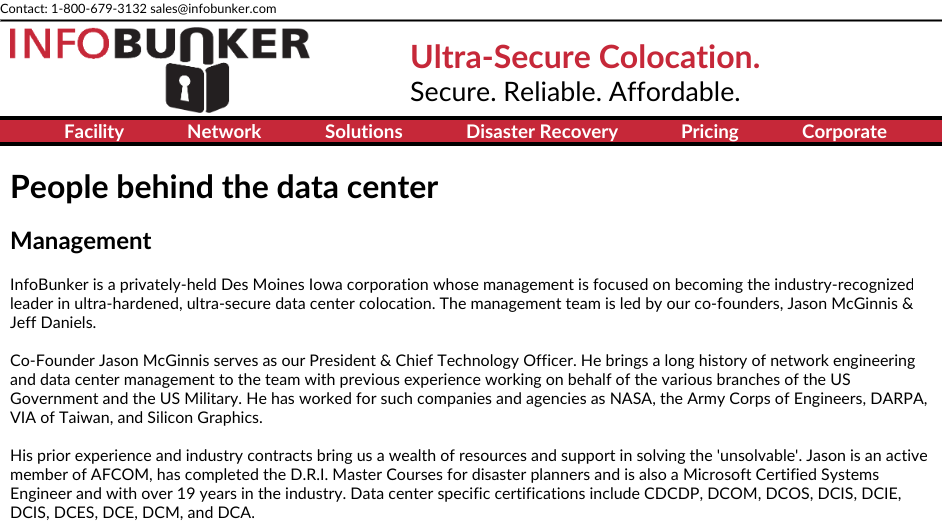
#include <cairo.h>
#include <math.h>
#include <stddef.h>


static void rgb(cairo_t *cr, int r, int g, int b)
{
	cairo_set_source_rgb(cr, r / 255.0, g / 255.0, b / 255.0);
}

static void face(cairo_t *cr, const char *family, double size, int italic, int bold)
{
	cairo_select_font_face(cr, family, italic ? CAIRO_FONT_SLANT_ITALIC : CAIRO_FONT_SLANT_NORMAL,
		bold ? CAIRO_FONT_WEIGHT_BOLD : CAIRO_FONT_WEIGHT_NORMAL);
	cairo_set_font_size(cr, size);
}

static void label(cairo_t *cr, double x, double y, const char *s)
{
	cairo_move_to(cr, x, y);
	cairo_show_text(cr, s);
}

static void rect(cairo_t *cr, double x, double y, double w, double h)
{
	cairo_rectangle(cr, x, y, w, h);
	cairo_fill(cr);
}

static void image(cairo_t *cr, const char *path, double x, double y, double w, double h)
{
	cairo_surface_t *image = cairo_image_surface_create_from_png(path);
	cairo_save(cr);
	cairo_set_source_surface(cr, image, x, y);
	cairo_rectangle(cr, x, y, w, h);
	cairo_fill(cr);
	cairo_restore(cr);
	cairo_surface_destroy(image);
}

static void draw(cairo_t *cr) {
	rgb(cr, 255, 255, 255);
	cairo_paint(cr);
	face(cr, "Lato", 12.8, 0, 0);
	rgb(cr, 0, 0, 0);
	label(cr, 0, 13, "Contact: 1-800-679-3132 sales@infobunker.com");
	cairo_rectangle(cr, 0.5, 19.5, 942, 2);
	cairo_fill_preserve(cr);
	rgb(cr, 128, 128, 128);
	cairo_set_line_width(cr, 1);
	cairo_stroke(cr);
	image(cr, "image0.png", 10, 27, 300, 86);
	face(cr, "Lato", 32, 0, 1);
	rgb(cr, 198, 40, 57);
	label(cr, 410, 68, "Ultra-Secure Colocation.");
	face(cr, "Lato", 26.75, 0, 0);
	rgb(cr, 0, 0, 0);
	label(cr, 410, 101, "Secure. Reliable. Affordable.");
	rgb(cr, 198, 40, 57);
	rect(cr, 0, 120, 942, 22);
	rgb(cr, 0, 0, 0);
	rect(cr, 0, 116, 942, 4);
	rect(cr, 0, 142, 942, 4);
	face(cr, "Lato", 18.75, 0, 1);
	rgb(cr, 255, 255, 255);
	label(cr, 64, 138, "Facility");
	label(cr, 187, 138, "Network");
	label(cr, 325, 138, "Solutions");
	label(cr, 466, 138, "Disaster Recovery");
	label(cr, 681, 138, "Pricing");
	label(cr, 802, 138, "Corporate");
	face(cr, "Lato", 32, 0, 1);
	rgb(cr, 0, 0, 0);
	label(cr, 10, 198, "People behind the data center");
	face(cr, "Lato", 24, 0, 1);
	label(cr, 10, 249, "Management");
	face(cr, "Lato", 16, 0, 0);
	label(cr, 10, 290, "InfoBunker is a privately-held Des Moines Iowa corporation whose management is focused on becoming the industry-recognized");
	label(cr, 10, 309, "leader in ultra-hardened, ultra-secure data center colocation. The management team is led by our co-founders, Jason McGinnis &");
	label(cr, 10, 328, "Jeff Daniels.");
	label(cr, 10, 366, "Co-Founder Jason McGinnis serves as our President & Chief Technology Officer. He brings a long history of network engineering");
	label(cr, 10, 385, "and data center management to the team with previous experience working on behalf of the various branches of the US");
	label(cr, 10, 404, "Government and the US Military. He has worked for such companies and agencies as NASA, the Army Corps of Engineers, DARPA,");
	label(cr, 10, 423, "VIA of Taiwan, and Silicon Graphics.");
	label(cr, 10, 461, "His prior experience and industry contracts bring us a wealth of resources and support in solving the 'unsolvable'. Jason is an active");
	label(cr, 10, 480, "member of AFCOM, has completed the D.R.I. Master Courses for disaster planners and is also a Microsoft Certified Systems");
	label(cr, 10, 499, "Engineer and with over 19 years in the industry. Data center specific certifications include CDCDP, DCOM, DCOS, DCIS, DCIE,");
	label(cr, 10, 518, "DCIS, DCES, DCE, DCM, and DCA.");
}

int main(void) {
	cairo_surface_t *surface = cairo_image_surface_create(CAIRO_FORMAT_RGB24, 942, 532);
	cairo_t *cr = cairo_create(surface);
	cairo_font_options_t *options = cairo_font_options_create();
	cairo_font_options_set_hint_metrics(options, CAIRO_HINT_METRICS_OFF);
	cairo_font_options_set_hint_style(options, CAIRO_HINT_STYLE_NONE);
	cairo_set_font_options(cr, options);
	cairo_set_miter_limit(cr, 4);
	draw(cr);
	cairo_surface_write_to_png(surface, "render.png");
	cairo_font_options_destroy(options);
	cairo_destroy(cr);
	cairo_surface_destroy(surface);
	return 0;
}
